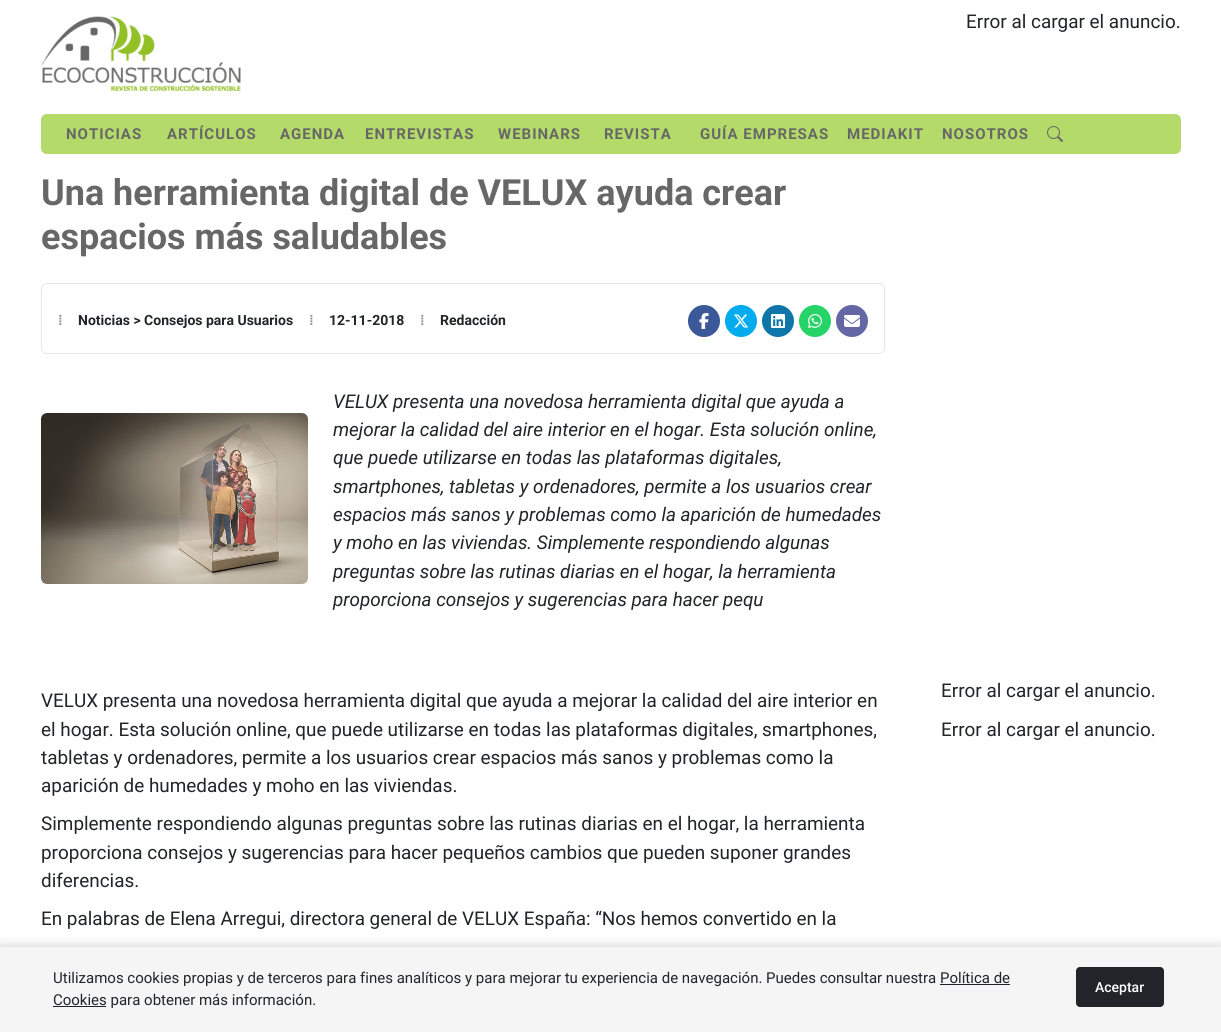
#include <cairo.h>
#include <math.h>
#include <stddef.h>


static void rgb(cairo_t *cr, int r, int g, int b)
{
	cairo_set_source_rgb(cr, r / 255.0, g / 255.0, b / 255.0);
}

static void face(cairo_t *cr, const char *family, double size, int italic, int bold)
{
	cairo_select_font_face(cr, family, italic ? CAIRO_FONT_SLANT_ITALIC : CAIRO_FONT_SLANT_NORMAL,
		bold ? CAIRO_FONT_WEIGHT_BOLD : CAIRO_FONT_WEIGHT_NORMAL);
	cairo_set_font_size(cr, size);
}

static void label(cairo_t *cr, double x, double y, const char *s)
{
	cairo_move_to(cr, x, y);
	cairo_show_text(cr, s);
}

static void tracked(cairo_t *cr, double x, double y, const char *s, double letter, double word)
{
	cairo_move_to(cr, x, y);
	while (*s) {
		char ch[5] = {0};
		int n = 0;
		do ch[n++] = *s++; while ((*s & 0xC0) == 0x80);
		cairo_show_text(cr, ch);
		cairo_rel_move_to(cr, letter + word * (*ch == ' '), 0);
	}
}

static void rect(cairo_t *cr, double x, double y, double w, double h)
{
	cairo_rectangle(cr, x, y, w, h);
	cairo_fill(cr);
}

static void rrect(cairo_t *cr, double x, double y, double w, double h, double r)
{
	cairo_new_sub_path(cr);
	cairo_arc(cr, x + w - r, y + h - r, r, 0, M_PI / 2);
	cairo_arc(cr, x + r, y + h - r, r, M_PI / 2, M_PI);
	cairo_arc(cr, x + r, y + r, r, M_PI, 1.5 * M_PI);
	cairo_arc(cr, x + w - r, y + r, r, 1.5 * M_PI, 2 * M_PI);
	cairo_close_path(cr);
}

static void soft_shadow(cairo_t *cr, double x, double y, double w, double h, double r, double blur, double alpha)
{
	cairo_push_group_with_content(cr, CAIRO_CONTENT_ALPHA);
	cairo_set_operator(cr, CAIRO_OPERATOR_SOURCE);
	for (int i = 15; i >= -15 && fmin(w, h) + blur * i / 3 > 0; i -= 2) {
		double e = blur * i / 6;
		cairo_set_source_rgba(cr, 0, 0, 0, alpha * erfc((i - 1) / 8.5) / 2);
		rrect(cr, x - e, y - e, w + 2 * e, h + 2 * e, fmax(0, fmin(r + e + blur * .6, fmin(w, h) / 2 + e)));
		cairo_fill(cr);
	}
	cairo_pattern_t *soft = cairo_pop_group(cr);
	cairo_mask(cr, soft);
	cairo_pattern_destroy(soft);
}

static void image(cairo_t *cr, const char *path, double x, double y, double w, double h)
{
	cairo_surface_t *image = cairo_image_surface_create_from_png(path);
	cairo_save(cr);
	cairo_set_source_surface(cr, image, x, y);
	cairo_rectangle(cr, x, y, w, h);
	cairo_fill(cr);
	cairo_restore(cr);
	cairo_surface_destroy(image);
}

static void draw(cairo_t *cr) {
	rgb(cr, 255, 255, 255);
	cairo_paint(cr);
	image(cr, "image0.png", 41, 16, 200, 75);
	face(cr, "Roboto", 18.9, 0, 0);
	rgb(cr, 33, 37, 41);
	label(cr, 966, 28, "Error al cargar el anuncio.");
	rgb(cr, 180, 218, 105);
	rrect(cr, 41, 114, 1140, 40, 6);
	cairo_fill(cr);
	face(cr, "Roboto", 15, 0, 1);
	rgb(cr, 103, 103, 103);
	tracked(cr, 66, 139, "NOTICIAS", 1, 0);
	tracked(cr, 167, 139, "ARTÍCULOS", 1, 0);
	tracked(cr, 280, 139, "AGENDA", 1, 0);
	tracked(cr, 365, 139, "ENTREVISTAS", 1, 0);
	tracked(cr, 498, 139, "WEBINARS", 1, 0);
	tracked(cr, 604, 139, "REVISTA", 1, 0);
	tracked(cr, 700, 139, "GUÍA EMPRESAS", 1, 0);
	tracked(cr, 847, 139, "MEDIAKIT", 1, 0);
	tracked(cr, 942, 139, "NOSOTROS", 1, 0);
	image(cr, "image1.png", 1047, 126, 16, 16);
	face(cr, "Roboto", 36, 0, 1);
	label(cr, 41, 205, "Una herramienta digital de VELUX ayuda crear");
	label(cr, 41, 249, "espacios más saludables");
	rrect(cr, 41.5, 283.5, 843, 70, 5.5);
	rgb(cr, 230, 230, 230);
	cairo_set_line_width(cr, 1);
	cairo_stroke(cr);
	face(cr, "Liberation Sans", 14, 0, 1);
	rgb(cr, 144, 146, 148);
	label(cr, 58, 325, "⁞");
	face(cr, "Roboto", 14, 0, 1);
	rgb(cr, 33, 37, 41);
	label(cr, 78, 325, "Noticias > Consejos para Usuarios");
	face(cr, "Liberation Sans", 14, 0, 1);
	rgb(cr, 144, 146, 148);
	label(cr, 309, 325, "⁞");
	face(cr, "Roboto", 14, 0, 1);
	rgb(cr, 33, 37, 41);
	label(cr, 329, 325, "12-11-2018");
	face(cr, "Liberation Sans", 14, 0, 1);
	rgb(cr, 144, 146, 148);
	label(cr, 420, 325, "⁞");
	face(cr, "Roboto", 14, 0, 1);
	rgb(cr, 33, 37, 41);
	label(cr, 440, 325, "Redacción");
	rgb(cr, 59, 89, 152);
	cairo_new_path(cr);
	cairo_arc(cr, 704, 321, 16, 0, 2 * M_PI);
	cairo_fill(cr);
	image(cr, "image2.png", 699, 313, 10, 16);
	rgb(cr, 0, 172, 238);
	cairo_arc(cr, 741, 321, 16, 0, 2 * M_PI);
	cairo_fill(cr);
	image(cr, "image3.png", 734, 314, 15, 14);
	rgb(cr, 14, 118, 168);
	cairo_arc(cr, 778, 321, 16, 0, 2 * M_PI);
	cairo_fill(cr);
	image(cr, "image4.png", 771, 314, 14, 14);
	rgb(cr, 37, 211, 102);
	cairo_arc(cr, 815, 321, 16, 0, 2 * M_PI);
	cairo_fill(cr);
	image(cr, "image5.png", 808, 314, 14, 14);
	rgb(cr, 101, 103, 165);
	cairo_arc(cr, 852, 321, 16, 0, 2 * M_PI);
	cairo_fill(cr);
	image(cr, "image6.png", 844, 315, 16, 12);
	image(cr, "image7.png", 41, 413, 267, 171);
	face(cr, "Roboto", 18.9, 1, 0);
	rgb(cr, 33, 37, 41);
	label(cr, 333, 408, "VELUX presenta una novedosa herramienta digital que ayuda a");
	label(cr, 333, 436, "mejorar la calidad del aire interior en el hogar. Esta solución online,");
	label(cr, 333, 464, "que puede utilizarse en todas las plataformas digitales,");
	label(cr, 333, 493, "smartphones, tabletas y ordenadores, permite a los usuarios crear");
	label(cr, 333, 521, "espacios más sanos y problemas como la aparición de humedades");
	label(cr, 333, 549, "y moho en las viviendas. Simplemente respondiendo algunas");
	label(cr, 333, 578, "preguntas sobre las rutinas diarias en el hogar, la herramienta");
	label(cr, 333, 606, "proporciona consejos y sugerencias para hacer pequ");
	face(cr, "Roboto", 18.9, 0, 0);
	label(cr, 41, 707, "VELUX presenta una novedosa herramienta digital que ayuda a mejorar la calidad del aire interior en");
	label(cr, 41, 736, "el hogar. Esta solución online, que puede utilizarse en todas las plataformas digitales, smartphones,");
	label(cr, 41, 764, "tabletas y ordenadores, permite a los usuarios crear espacios más sanos y problemas como la");
	label(cr, 41, 792, "aparición de humedades y moho en las viviendas.");
	label(cr, 41, 830, "Simplemente respondiendo algunas preguntas sobre las rutinas diarias en el hogar, la herramienta");
	label(cr, 41, 859, "proporciona consejos y sugerencias para hacer pequeños cambios que pueden suponer grandes");
	label(cr, 41, 887, "diferencias.");
	label(cr, 41, 925, "En palabras de Elena Arregui, directora general de VELUX España: “Nos hemos convertido en la");
	label(cr, 941, 697, "Error al cargar el anuncio.");
	label(cr, 941, 736, "Error al cargar el anuncio.");
	rgb(cr, 0, 0, 0);
	soft_shadow(cr, 0, 945, 1221, 85, 0, 5, 0.15);
	rgb(cr, 245, 245, 245);
	rect(cr, 0, 947, 1221, 85);
	face(cr, "Roboto", 15, 0, 0);
	rgb(cr, 33, 37, 41);
	label(cr, 53, 983, "Utilizamos cookies propias y de terceros para fines analíticos y para mejorar tu experiencia de navegación. Puedes consultar nuestra Política de");
	rect(cr, 53, 1006, 53, 1);
	label(cr, 53, 1005, "Cookies para obtener más información.");
	rect(cr, 940, 984, 70, 1);
	rrect(cr, 1076, 967, 88, 40, 4);
	cairo_fill(cr);
	face(cr, "Roboto Medium", 14, 0, 0);
	rgb(cr, 255, 255, 255);
	label(cr, 1095, 992, "Aceptar");
}

int main(void) {
	cairo_surface_t *surface = cairo_image_surface_create(CAIRO_FORMAT_RGB24, 1221, 1032);
	cairo_t *cr = cairo_create(surface);
	cairo_font_options_t *options = cairo_font_options_create();
	cairo_font_options_set_hint_metrics(options, CAIRO_HINT_METRICS_OFF);
	cairo_font_options_set_hint_style(options, CAIRO_HINT_STYLE_NONE);
	cairo_set_font_options(cr, options);
	cairo_set_miter_limit(cr, 4);
	draw(cr);
	cairo_surface_write_to_png(surface, "render.png");
	cairo_font_options_destroy(options);
	cairo_destroy(cr);
	cairo_surface_destroy(surface);
	return 0;
}
